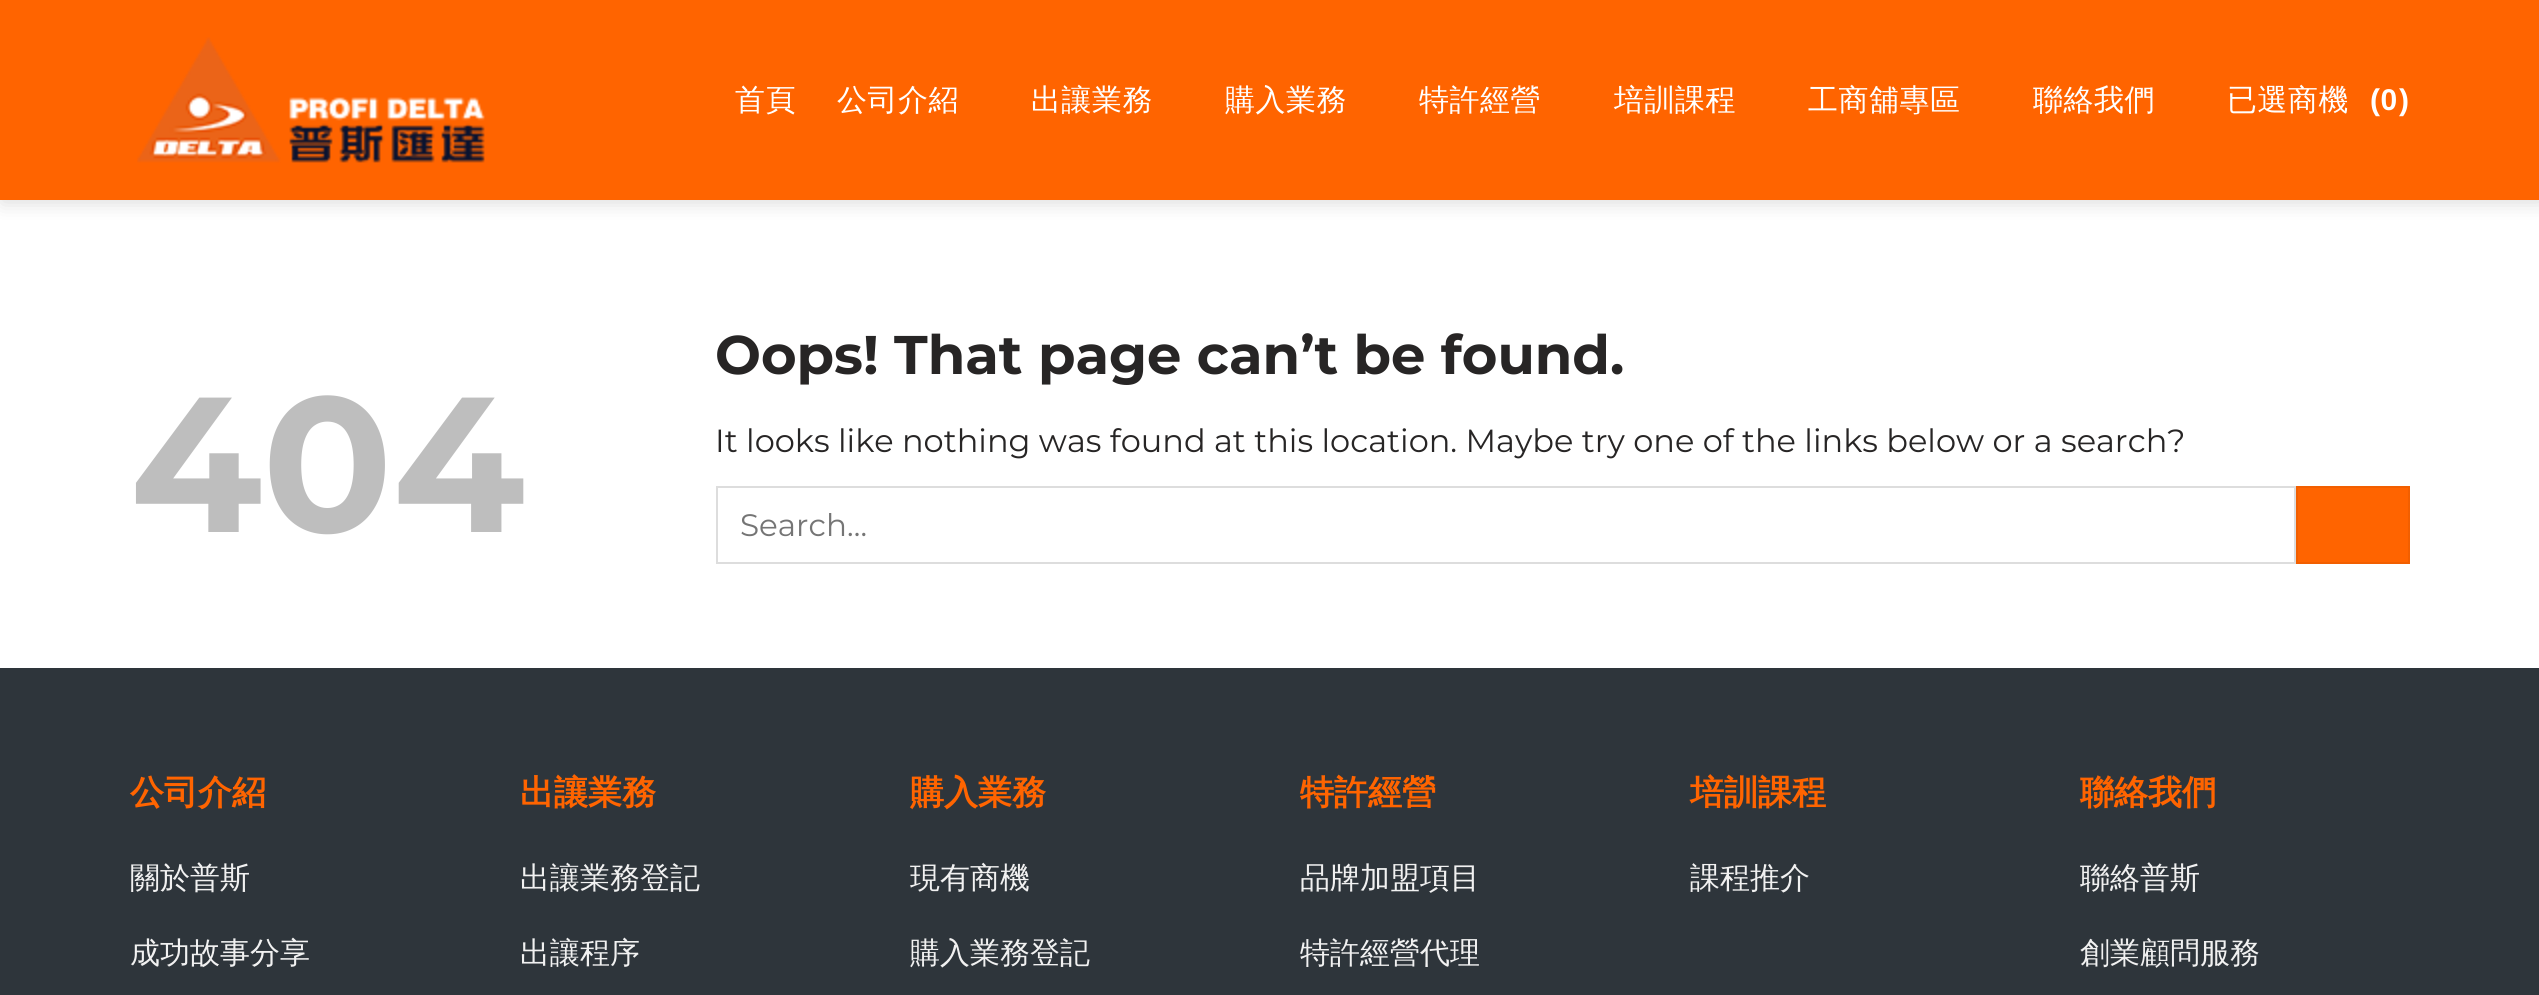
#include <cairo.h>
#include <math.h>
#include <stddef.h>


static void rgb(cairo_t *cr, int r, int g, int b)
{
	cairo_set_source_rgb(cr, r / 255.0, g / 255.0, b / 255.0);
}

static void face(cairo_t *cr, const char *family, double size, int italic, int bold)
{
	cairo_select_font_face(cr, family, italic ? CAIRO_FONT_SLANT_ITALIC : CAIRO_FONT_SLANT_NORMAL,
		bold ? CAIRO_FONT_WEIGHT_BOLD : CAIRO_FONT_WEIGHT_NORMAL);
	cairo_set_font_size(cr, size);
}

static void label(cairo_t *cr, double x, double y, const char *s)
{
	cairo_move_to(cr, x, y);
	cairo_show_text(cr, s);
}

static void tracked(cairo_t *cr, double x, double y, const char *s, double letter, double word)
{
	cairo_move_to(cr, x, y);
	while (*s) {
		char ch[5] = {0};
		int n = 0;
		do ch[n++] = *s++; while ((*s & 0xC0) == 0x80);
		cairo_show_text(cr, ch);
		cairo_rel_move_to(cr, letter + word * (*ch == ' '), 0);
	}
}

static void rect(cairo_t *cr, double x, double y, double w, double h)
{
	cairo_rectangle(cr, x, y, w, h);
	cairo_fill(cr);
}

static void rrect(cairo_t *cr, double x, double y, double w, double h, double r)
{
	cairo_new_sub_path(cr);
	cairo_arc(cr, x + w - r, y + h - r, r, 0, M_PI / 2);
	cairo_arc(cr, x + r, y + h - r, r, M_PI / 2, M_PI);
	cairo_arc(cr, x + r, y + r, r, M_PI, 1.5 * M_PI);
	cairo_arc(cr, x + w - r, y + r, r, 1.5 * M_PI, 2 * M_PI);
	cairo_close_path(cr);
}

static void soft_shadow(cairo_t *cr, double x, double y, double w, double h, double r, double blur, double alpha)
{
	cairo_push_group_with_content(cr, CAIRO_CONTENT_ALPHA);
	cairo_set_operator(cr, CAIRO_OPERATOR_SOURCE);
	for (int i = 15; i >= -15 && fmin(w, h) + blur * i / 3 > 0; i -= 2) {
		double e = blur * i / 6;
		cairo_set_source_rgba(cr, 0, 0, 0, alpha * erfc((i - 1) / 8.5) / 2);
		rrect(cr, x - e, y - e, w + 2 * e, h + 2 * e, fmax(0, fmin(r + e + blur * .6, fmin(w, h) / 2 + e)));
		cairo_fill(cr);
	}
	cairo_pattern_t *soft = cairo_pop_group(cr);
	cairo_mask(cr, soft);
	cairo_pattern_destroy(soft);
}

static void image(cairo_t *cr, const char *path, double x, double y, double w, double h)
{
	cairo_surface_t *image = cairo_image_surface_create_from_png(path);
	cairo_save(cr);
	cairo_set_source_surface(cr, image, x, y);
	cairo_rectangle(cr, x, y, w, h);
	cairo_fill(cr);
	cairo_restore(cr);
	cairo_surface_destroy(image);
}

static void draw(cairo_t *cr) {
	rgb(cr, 255, 255, 255);
	cairo_paint(cr);
	rgb(cr, 0, 0, 0);
	soft_shadow(cr, 2, 2, 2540, 200, 0, 10, 0.15);
	rgb(cr, 255, 100, 0);
	rect(cr, 0, 0, 2539, 200);
	image(cr, "image0.png", 137, 37, 348, 126);
	face(cr, "WenQuanYi Zen Hei Medium", 30, 0, 0);
	rgb(cr, 255, 255, 255);
	tracked(cr, 735, 110, "首頁", 0.5, 0);
	tracked(cr, 837, 110, "公司介紹", 0.5, 0);
	tracked(cr, 1031, 110, "出讓業務", 0.5, 0);
	tracked(cr, 1225, 110, "購入業務", 0.5, 0);
	tracked(cr, 1419, 110, "特許經營", 0.5, 0);
	tracked(cr, 1614, 110, "培訓課程", 0.5, 0);
	tracked(cr, 1808, 110, "工商舖專區", 0.5, 0);
	tracked(cr, 2033, 110, "聯絡我們", 0.5, 0);
	tracked(cr, 2227, 110, "已選商機", 0.5, 0);
	face(cr, "Liberation Sans", 30, 0, 1);
	tracked(cr, 2370, 110, "(0", 0.5, 0);
	tracked(cr, 2399, 110, ")", 0.5, 0);
	face(cr, "Montserrat", 192, 0, 1);
	rgb(cr, 190, 190, 190);
	label(cr, 130, 532, "404");
	face(cr, "Montserrat", 54.4, 0, 1);
	rgb(cr, 39, 37, 37);
	label(cr, 715, 374, "Oops! That page can’t be found.");
	face(cr, "Montserrat", 32, 0, 0);
	label(cr, 715, 452, "It looks like nothing was found at this location. Maybe try one of the links below or a search?");
	cairo_rectangle(cr, 717, 487, 1578, 76);
	rgb(cr, 221, 221, 221);
	cairo_stroke(cr);
	face(cr, "Montserrat", 31, 0, 0);
	rgb(cr, 117, 117, 117);
	label(cr, 740, 536, "Search…");
	rgb(cr, 255, 100, 0);
	cairo_rectangle(cr, 2297, 487, 112, 76);
	cairo_fill_preserve(cr);
	rgb(cr, 242, 95, 0);
	cairo_stroke(cr);
	rgb(cr, 46, 53, 59);
	rect(cr, 0, 668, 2539, 327);
	face(cr, "WenQuanYi Zen Hei", 34, 0, 1);
	rgb(cr, 255, 100, 0);
	label(cr, 130, 804, "公司介紹");
	face(cr, "WenQuanYi Zen Hei Medium", 30, 0, 0);
	rgb(cr, 241, 241, 241);
	label(cr, 130, 888, "關於普斯");
	label(cr, 130, 963, "成功故事分享");
	face(cr, "WenQuanYi Zen Hei", 34, 0, 1);
	rgb(cr, 255, 100, 0);
	label(cr, 520, 804, "出讓業務");
	face(cr, "WenQuanYi Zen Hei Medium", 30, 0, 0);
	rgb(cr, 241, 241, 241);
	label(cr, 520, 888, "出讓業務登記");
	label(cr, 520, 963, "出讓程序");
	face(cr, "WenQuanYi Zen Hei", 34, 0, 1);
	rgb(cr, 255, 100, 0);
	label(cr, 910, 804, "購入業務");
	face(cr, "WenQuanYi Zen Hei Medium", 30, 0, 0);
	rgb(cr, 241, 241, 241);
	label(cr, 910, 888, "現有商機");
	label(cr, 910, 963, "購入業務登記");
	face(cr, "WenQuanYi Zen Hei", 34, 0, 1);
	rgb(cr, 255, 100, 0);
	label(cr, 1300, 804, "特許經營");
	face(cr, "WenQuanYi Zen Hei Medium", 30, 0, 0);
	rgb(cr, 241, 241, 241);
	label(cr, 1300, 888, "品牌加盟項目");
	label(cr, 1300, 963, "特許經營代理");
	face(cr, "WenQuanYi Zen Hei", 34, 0, 1);
	rgb(cr, 255, 100, 0);
	label(cr, 1690, 804, "培訓課程");
	face(cr, "WenQuanYi Zen Hei Medium", 30, 0, 0);
	rgb(cr, 241, 241, 241);
	label(cr, 1690, 888, "課程推介");
	face(cr, "WenQuanYi Zen Hei", 34, 0, 1);
	rgb(cr, 255, 100, 0);
	label(cr, 2080, 804, "聯絡我們");
	face(cr, "WenQuanYi Zen Hei Medium", 30, 0, 0);
	rgb(cr, 241, 241, 241);
	label(cr, 2080, 888, "聯絡普斯");
	label(cr, 2080, 963, "創業顧問服務");
}

int main(void) {
	cairo_surface_t *surface = cairo_image_surface_create(CAIRO_FORMAT_RGB24, 2539, 995);
	cairo_t *cr = cairo_create(surface);
	cairo_font_options_t *options = cairo_font_options_create();
	cairo_font_options_set_hint_metrics(options, CAIRO_HINT_METRICS_OFF);
	cairo_font_options_set_hint_style(options, CAIRO_HINT_STYLE_NONE);
	cairo_set_font_options(cr, options);
	cairo_set_miter_limit(cr, 4);
	draw(cr);
	cairo_surface_write_to_png(surface, "render.png");
	cairo_font_options_destroy(options);
	cairo_destroy(cr);
	cairo_surface_destroy(surface);
	return 0;
}
